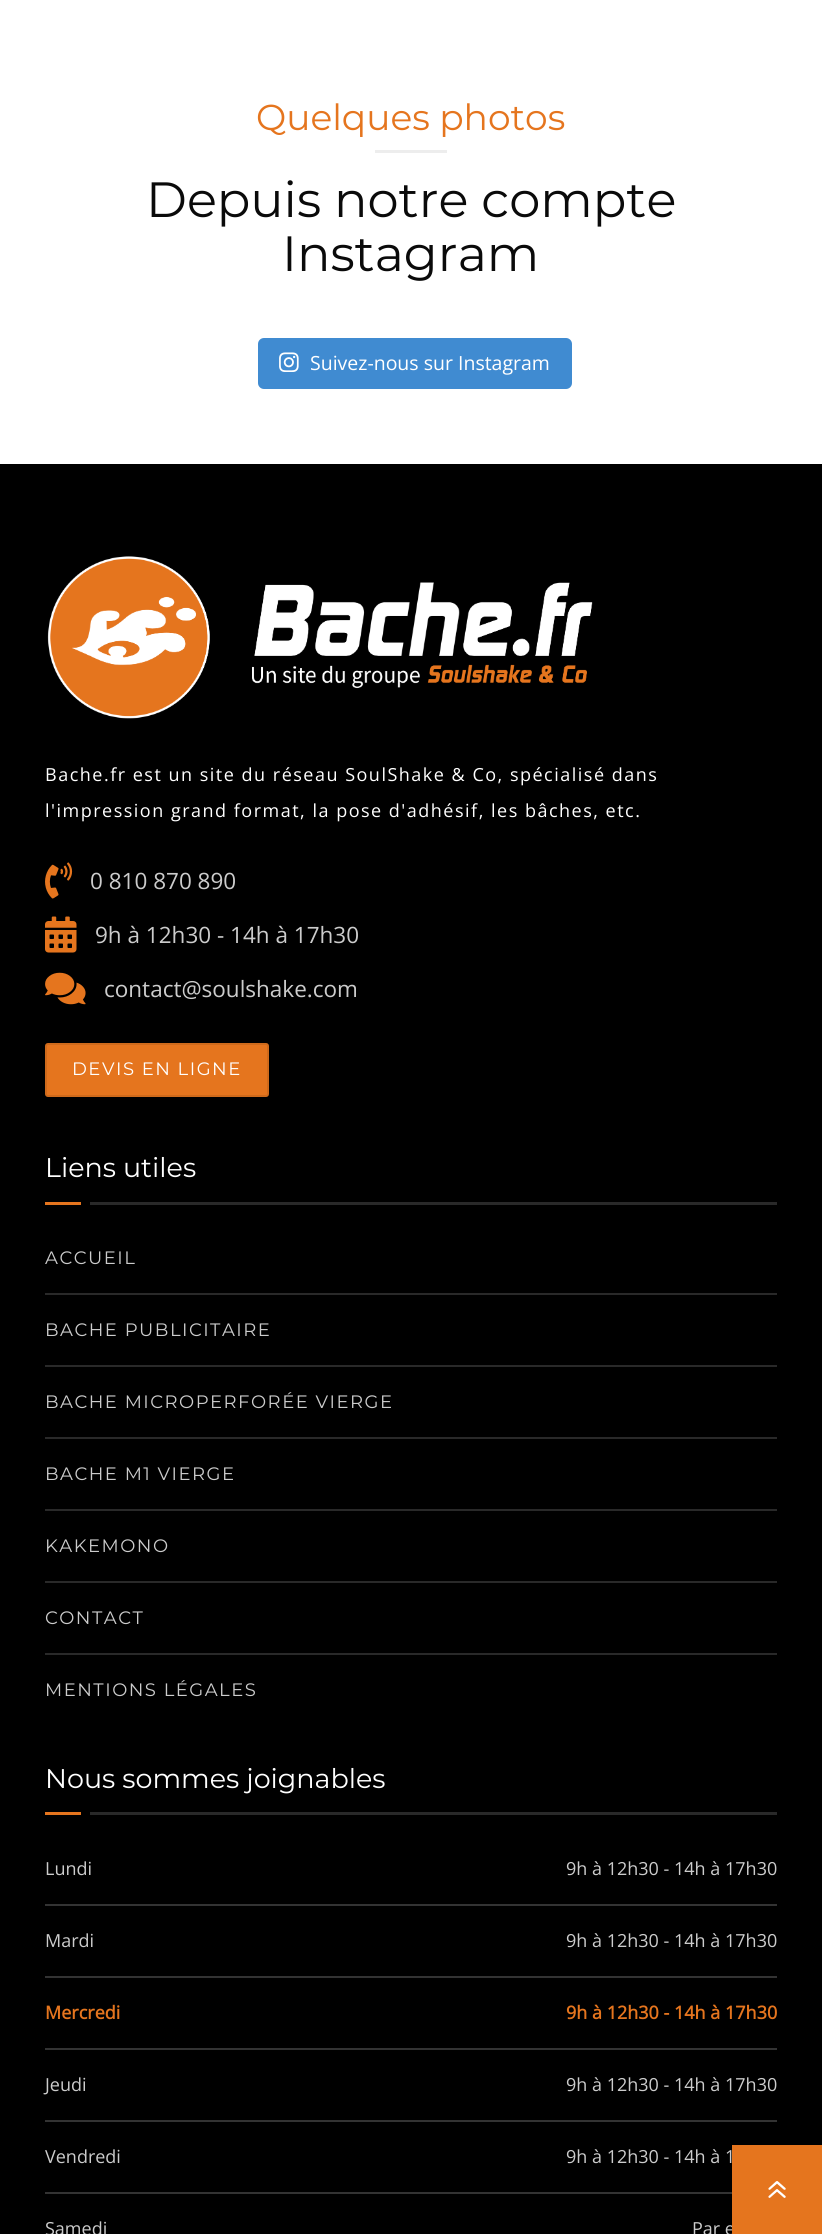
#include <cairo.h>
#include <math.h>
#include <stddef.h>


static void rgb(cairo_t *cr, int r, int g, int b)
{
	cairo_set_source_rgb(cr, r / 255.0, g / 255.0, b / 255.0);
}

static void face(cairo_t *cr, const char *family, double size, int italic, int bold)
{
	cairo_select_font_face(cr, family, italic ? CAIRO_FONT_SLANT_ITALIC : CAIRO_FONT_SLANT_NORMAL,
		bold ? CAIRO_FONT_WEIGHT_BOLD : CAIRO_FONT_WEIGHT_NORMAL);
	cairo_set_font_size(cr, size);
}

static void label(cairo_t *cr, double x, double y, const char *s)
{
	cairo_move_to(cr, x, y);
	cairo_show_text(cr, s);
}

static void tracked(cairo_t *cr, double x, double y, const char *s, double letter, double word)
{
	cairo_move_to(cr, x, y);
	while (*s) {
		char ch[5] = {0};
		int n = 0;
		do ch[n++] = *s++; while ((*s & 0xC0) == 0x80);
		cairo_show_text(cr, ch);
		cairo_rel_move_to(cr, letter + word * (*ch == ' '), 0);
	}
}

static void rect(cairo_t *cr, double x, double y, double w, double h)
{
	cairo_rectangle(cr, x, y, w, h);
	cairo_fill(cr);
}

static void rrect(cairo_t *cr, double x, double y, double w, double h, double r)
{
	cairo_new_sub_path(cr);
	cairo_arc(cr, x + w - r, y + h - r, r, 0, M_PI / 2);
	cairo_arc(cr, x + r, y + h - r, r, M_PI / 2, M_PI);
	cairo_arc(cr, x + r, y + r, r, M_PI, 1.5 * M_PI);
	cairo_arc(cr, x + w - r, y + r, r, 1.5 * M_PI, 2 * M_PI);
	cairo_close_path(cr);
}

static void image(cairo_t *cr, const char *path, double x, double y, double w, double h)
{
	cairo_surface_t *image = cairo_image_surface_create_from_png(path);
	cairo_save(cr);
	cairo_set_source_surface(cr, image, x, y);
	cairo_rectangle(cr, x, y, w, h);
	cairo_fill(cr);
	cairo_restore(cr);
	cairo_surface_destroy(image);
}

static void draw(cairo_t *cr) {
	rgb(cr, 255, 255, 255);
	cairo_paint(cr);
	face(cr, "Montserrat Thin", 36, 0, 0);
	rgb(cr, 229, 117, 30);
	label(cr, 256, 130, "Quelques photos");
	rgb(cr, 237, 237, 237);
	rect(cr, 375, 150, 72, 3);
	face(cr, "Montserrat Thin", 49.5, 0, 0);
	rgb(cr, 10, 10, 10);
	label(cr, 146, 217, "Depuis notre compte");
	label(cr, 282, 271, "Instagram");
	rgb(cr, 64, 139, 209);
	rrect(cr, 258, 338, 314, 51, 6);
	cairo_fill(cr);
	image(cr, "image0.png", 279, 352, 20, 20);
	face(cr, "Open Sans", 19.5, 0, 0);
	rgb(cr, 255, 255, 255);
	label(cr, 310, 370, "Suivez-nous sur Instagram");
	rgb(cr, 0, 0, 0);
	rect(cr, 0, 464, 822, 1770);
	image(cr, "image1.png", 47, 556, 546, 163);
	face(cr, "Open Sans", 18, 0, 0);
	rgb(cr, 255, 255, 255);
	tracked(cr, 45, 781, "Bache.fr est un site du réseau SoulShake & Co, spécialisé dans", 1.5, 0);
	tracked(cr, 45, 817, "l'impression grand format, la pose d'adhésif, les bâches, etc.", 1.5, 0);
	image(cr, "image2.png", 45, 862, 28, 37);
	face(cr, "Open Sans", 22.5, 0, 0);
	rgb(cr, 204, 204, 204);
	label(cr, 90, 889, "0 810 870 890");
	image(cr, "image3.png", 45, 916, 32, 37);
	label(cr, 95, 943, "9h à 12h30 - 14h à 17h30");
	image(cr, "image4.png", 45, 972, 41, 33);
	label(cr, 104, 997, "contact@soulshake.com");
	rgb(cr, 229, 117, 30);
	rrect(cr, 45, 1043, 224, 54, 3);
	cairo_fill(cr);
	rrect(cr, 46, 1044, 222, 52, 2);
	cairo_set_source_rgba(cr, 0, 0, 0, 0.1);
	cairo_stroke(cr);
	face(cr, "Montserrat Thin", 18, 0, 0);
	rgb(cr, 255, 255, 255);
	tracked(cr, 72, 1075, "DEVIS EN LIGNE", 1.5, 0);
	face(cr, "Montserrat Thin", 27, 0, 0);
	label(cr, 45, 1177, "Liens utiles");
	rgb(cr, 229, 117, 30);
	rect(cr, 45, 1202, 36, 3);
	rgb(cr, 41, 41, 41);
	rect(cr, 90, 1202, 687, 3);
	rect(cr, 45, 1293, 732, 2);
	face(cr, "Montserrat Thin", 18, 0, 0);
	rgb(cr, 204, 204, 204);
	tracked(cr, 45, 1264, "ACCUEIL", 1.5, 0);
	rgb(cr, 41, 41, 41);
	rect(cr, 45, 1365, 732, 2);
	rgb(cr, 204, 204, 204);
	tracked(cr, 45, 1336, "BACHE PUBLICITAIRE", 1.5, 0);
	rgb(cr, 41, 41, 41);
	rect(cr, 45, 1437, 732, 2);
	rgb(cr, 204, 204, 204);
	tracked(cr, 45, 1408, "BACHE MICROPERFORÉE VIERGE", 1.5, 0);
	rgb(cr, 41, 41, 41);
	rect(cr, 45, 1509, 732, 2);
	rgb(cr, 204, 204, 204);
	tracked(cr, 45, 1480, "BACHE M1 VIERGE", 1.5, 0);
	rgb(cr, 41, 41, 41);
	rect(cr, 45, 1581, 732, 2);
	rgb(cr, 204, 204, 204);
	tracked(cr, 45, 1552, "KAKEMONO", 1.5, 0);
	rgb(cr, 41, 41, 41);
	rect(cr, 45, 1653, 732, 2);
	rgb(cr, 204, 204, 204);
	tracked(cr, 45, 1624, "CONTACT", 1.5, 0);
	tracked(cr, 45, 1696, "MENTIONS LÉGALES", 1.5, 0);
	face(cr, "Montserrat Thin", 27, 0, 0);
	rgb(cr, 255, 255, 255);
	label(cr, 45, 1788, "Nous sommes joignables");
	rgb(cr, 229, 117, 30);
	rect(cr, 45, 1812, 36, 3);
	rgb(cr, 41, 41, 41);
	rect(cr, 90, 1812, 687, 3);
	face(cr, "Open Sans", 18, 0, 0);
	rgb(cr, 204, 204, 204);
	label(cr, 45, 1875, "Lundi");
	label(cr, 566, 1875, "9h à 12h30 - 14h à 17h30");
	rgb(cr, 51, 51, 51);
	rect(cr, 45, 1904, 732, 2);
	rgb(cr, 204, 204, 204);
	label(cr, 45, 1947, "Mardi");
	label(cr, 566, 1947, "9h à 12h30 - 14h à 17h30");
	rgb(cr, 51, 51, 51);
	rect(cr, 45, 1976, 732, 2);
	face(cr, "Open Sans", 18, 0, 1);
	rgb(cr, 229, 117, 30);
	label(cr, 45, 2019, "Mercredi");
	label(cr, 566, 2019, "9h à 12h30 - 14h à 17h30");
	rgb(cr, 51, 51, 51);
	rect(cr, 45, 2048, 732, 2);
	face(cr, "Open Sans", 18, 0, 0);
	rgb(cr, 204, 204, 204);
	label(cr, 45, 2091, "Jeudi");
	label(cr, 566, 2091, "9h à 12h30 - 14h à 17h30");
	rgb(cr, 51, 51, 51);
	rect(cr, 45, 2120, 732, 2);
	rgb(cr, 204, 204, 204);
	label(cr, 45, 2163, "Vendredi");
	label(cr, 566, 2163, "9h à 12h30 - 14h à 1");
	rgb(cr, 51, 51, 51);
	rect(cr, 45, 2192, 687, 2);
	rgb(cr, 204, 204, 204);
	label(cr, 45, 2235, "Samedi");
	label(cr, 692, 2235, "Par e");
	rgb(cr, 229, 117, 30);
	rect(cr, 732, 2145, 90, 89);
	image(cr, "image5.png", 768, 2181, 18, 17);
}

int main(void) {
	cairo_surface_t *surface = cairo_image_surface_create(CAIRO_FORMAT_RGB24, 822, 2234);
	cairo_t *cr = cairo_create(surface);
	cairo_font_options_t *options = cairo_font_options_create();
	cairo_font_options_set_hint_metrics(options, CAIRO_HINT_METRICS_OFF);
	cairo_font_options_set_hint_style(options, CAIRO_HINT_STYLE_NONE);
	cairo_set_font_options(cr, options);
	cairo_set_miter_limit(cr, 4);
	draw(cr);
	cairo_surface_write_to_png(surface, "render.png");
	cairo_font_options_destroy(options);
	cairo_destroy(cr);
	cairo_surface_destroy(surface);
	return 0;
}
